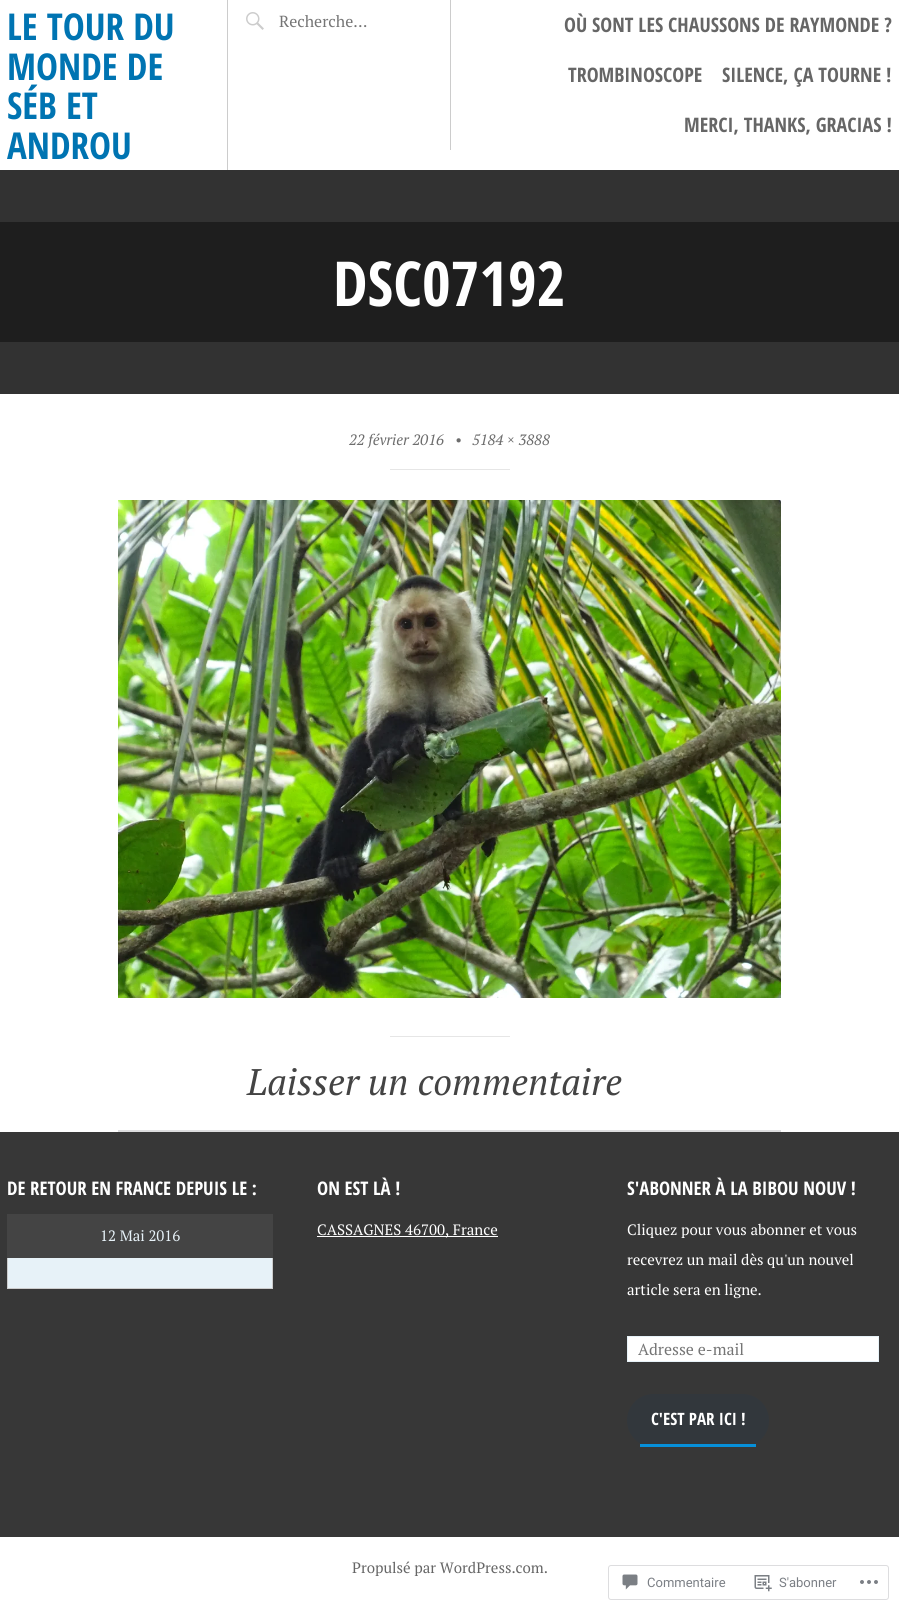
#include <cairo.h>
#include <math.h>
#include <stddef.h>


static void rgb(cairo_t *cr, int r, int g, int b)
{
	cairo_set_source_rgb(cr, r / 255.0, g / 255.0, b / 255.0);
}

static void face(cairo_t *cr, const char *family, double size, int italic, int bold)
{
	cairo_select_font_face(cr, family, italic ? CAIRO_FONT_SLANT_ITALIC : CAIRO_FONT_SLANT_NORMAL,
		bold ? CAIRO_FONT_WEIGHT_BOLD : CAIRO_FONT_WEIGHT_NORMAL);
	cairo_set_font_size(cr, size);
}

static void label(cairo_t *cr, double x, double y, const char *s)
{
	cairo_move_to(cr, x, y);
	cairo_show_text(cr, s);
}

static void rect(cairo_t *cr, double x, double y, double w, double h)
{
	cairo_rectangle(cr, x, y, w, h);
	cairo_fill(cr);
}

static void rrect(cairo_t *cr, double x, double y, double w, double h, double r)
{
	cairo_new_sub_path(cr);
	cairo_arc(cr, x + w - r, y + h - r, r, 0, M_PI / 2);
	cairo_arc(cr, x + r, y + h - r, r, M_PI / 2, M_PI);
	cairo_arc(cr, x + r, y + r, r, M_PI, 1.5 * M_PI);
	cairo_arc(cr, x + w - r, y + r, r, 1.5 * M_PI, 2 * M_PI);
	cairo_close_path(cr);
}

static void image(cairo_t *cr, const char *path, double x, double y, double w, double h)
{
	cairo_surface_t *image = cairo_image_surface_create_from_png(path);
	cairo_save(cr);
	cairo_set_source_surface(cr, image, x, y);
	cairo_rectangle(cr, x, y, w, h);
	cairo_fill(cr);
	cairo_restore(cr);
	cairo_surface_destroy(image);
}

static void draw(cairo_t *cr) {
	rgb(cr, 255, 255, 255);
	cairo_paint(cr);
	rgb(cr, 204, 204, 204);
	rect(cr, 227, 0, 1, 170);
	face(cr, "Open Sans Condensed", 37, 0, 1);
	rgb(cr, 0, 116, 178);
	label(cr, 7, 40, "LE TOUR DU");
	label(cr, 7, 80, "MONDE DE");
	label(cr, 7, 119, "SÉB ET");
	label(cr, 7, 159, "ANDROU");
	image(cr, "image0.png", 246, 12, 18, 18);
	face(cr, "PT Serif", 16, 0, 0);
	rgb(cr, 117, 117, 117);
	label(cr, 279, 27, "Recherche…");
	rgb(cr, 204, 204, 204);
	rect(cr, 450, 0, 1, 150);
	face(cr, "Open Sans Condensed", 20, 0, 1);
	rgb(cr, 102, 102, 102);
	label(cr, 564, 32, "OÙ SONT LES CHAUSSONS DE RAYMONDE ?");
	label(cr, 568, 82, "TROMBINOSCOPE");
	label(cr, 722, 82, "SILENCE, ÇA TOURNE !");
	label(cr, 684, 132, "MERCI, THANKS, GRACIAS !");
	rgb(cr, 30, 30, 30);
	rect(cr, 0, 222, 899, 120);
	rgb(cr, 50, 50, 50);
	rect(cr, 0, 170, 899, 52);
	rect(cr, 0, 342, 899, 52);
	face(cr, "Open Sans Condensed", 62, 0, 1);
	rgb(cr, 255, 255, 255);
	label(cr, 333, 306, "DSC07192");
	face(cr, "PT Serif", 15, 1, 0);
	rgb(cr, 109, 109, 109);
	label(cr, 349, 445, "22 février 2016");
	label(cr, 455, 445, "•");
	label(cr, 472, 445, "5184 × 3888");
	rgb(cr, 230, 230, 230);
	rect(cr, 390, 469, 120, 1);
	image(cr, "image1.png", 118, 500, 663, 498);
	rect(cr, 390, 1036, 120, 1);
	face(cr, "PT Serif", 37, 1, 0);
	rgb(cr, 68, 68, 68);
	label(cr, 247, 1095, "Laisser un commentaire");
	rgb(cr, 220, 220, 222);
	rect(cr, 118, 1130, 663, 2);
	rgb(cr, 55, 55, 55);
	rect(cr, 0, 1132, 899, 405);
	face(cr, "Open Sans Condensed", 18.75, 0, 1);
	rgb(cr, 255, 255, 255);
	label(cr, 7, 1195, "DE RETOUR EN FRANCE DEPUIS LE :");
	rgb(cr, 68, 68, 68);
	rect(cr, 7, 1214, 266, 44);
	face(cr, "PT Serif", 15, 0, 0);
	rgb(cr, 231, 242, 248);
	label(cr, 100, 1241, "12 Mai 2016");
	rect(cr, 8, 1258, 264, 30);
	rgb(cr, 204, 204, 204);
	rect(cr, 272, 1258, 1, 31);
	rect(cr, 7, 1288, 266, 1);
	rect(cr, 7, 1258, 1, 31);
	face(cr, "Open Sans Condensed", 18.75, 0, 1);
	rgb(cr, 255, 255, 255);
	label(cr, 317, 1195, "ON EST LÀ !");
	rect(cr, 317, 1236, 181, 1);
	face(cr, "PT Serif", 15, 0, 0);
	label(cr, 317, 1235, "CASSAGNES 46700, France");
	face(cr, "Open Sans Condensed", 18.75, 0, 1);
	label(cr, 627, 1195, "S'ABONNER À LA BIBOU NOUV !");
	face(cr, "PT Serif", 15, 0, 0);
	label(cr, 627, 1235, "Cliquez pour vous abonner et vous");
	label(cr, 627, 1265, "recevrez un mail dès qu'un nouvel");
	label(cr, 627, 1295, "article sera en ligne.");
	cairo_rectangle(cr, 627.5, 1336.5, 251, 25);
	cairo_fill_preserve(cr);
	rgb(cr, 231, 242, 248);
	cairo_set_line_width(cr, 1);
	cairo_stroke(cr);
	face(cr, "PT Serif", 16, 0, 0);
	rgb(cr, 117, 117, 117);
	label(cr, 638, 1355, "Adresse e-mail");
	rgb(cr, 50, 55, 60);
	rrect(cr, 627, 1394, 142, 53, 26.5);
	cairo_fill(cr);
	rgb(cr, 6, 143, 217);
	rect(cr, 640, 1444, 116, 3);
	face(cr, "Open Sans Condensed", 17, 0, 1);
	rgb(cr, 255, 255, 255);
	label(cr, 651, 1425, "C'EST PAR ICI !");
	face(cr, "PT Serif", 15, 0, 0);
	rgb(cr, 102, 102, 102);
	label(cr, 352, 1573, "Propulsé par WordPress.com.");
	rrect(cr, 608.5, 1565.5, 280, 34, 2.5);
	rgb(cr, 221, 221, 223);
	cairo_stroke(cr);
	image(cr, "image2.png", 622, 1574, 16, 16);
	face(cr, "Roboto", 13, 0, 0);
	rgb(cr, 123, 127, 133);
	label(cr, 647, 1587, "Commentaire");
	image(cr, "image3.png", 754, 1575, 18, 17);
	label(cr, 779, 1587, "S'abonner");
	image(cr, "image4.png", 860, 1580, 18, 4);
}

int main(void) {
	cairo_surface_t *surface = cairo_image_surface_create(CAIRO_FORMAT_RGB24, 899, 1610);
	cairo_t *cr = cairo_create(surface);
	cairo_font_options_t *options = cairo_font_options_create();
	cairo_font_options_set_hint_metrics(options, CAIRO_HINT_METRICS_OFF);
	cairo_font_options_set_hint_style(options, CAIRO_HINT_STYLE_NONE);
	cairo_set_font_options(cr, options);
	cairo_set_miter_limit(cr, 4);
	draw(cr);
	cairo_surface_write_to_png(surface, "render.png");
	cairo_font_options_destroy(options);
	cairo_destroy(cr);
	cairo_surface_destroy(surface);
	return 0;
}
